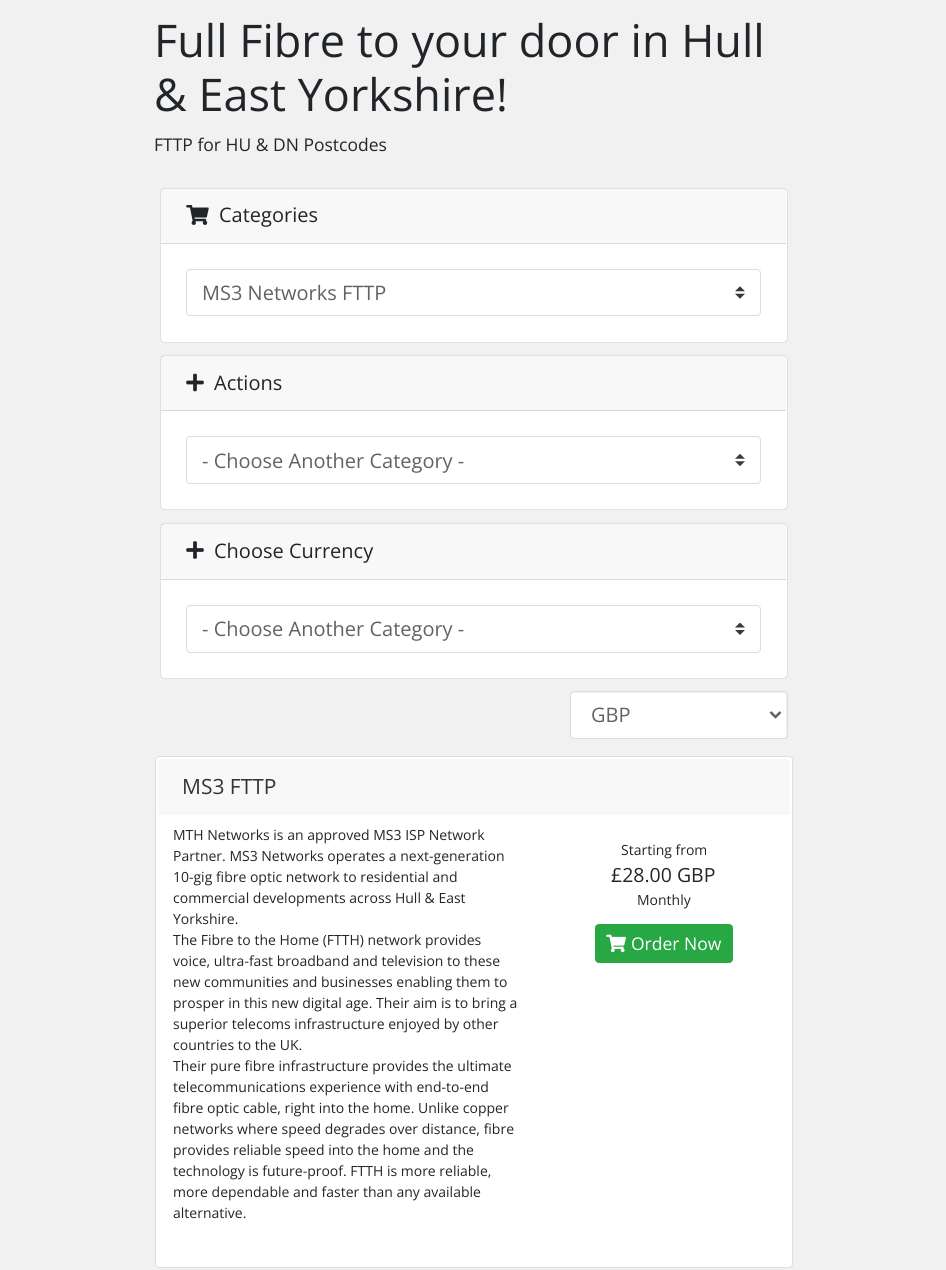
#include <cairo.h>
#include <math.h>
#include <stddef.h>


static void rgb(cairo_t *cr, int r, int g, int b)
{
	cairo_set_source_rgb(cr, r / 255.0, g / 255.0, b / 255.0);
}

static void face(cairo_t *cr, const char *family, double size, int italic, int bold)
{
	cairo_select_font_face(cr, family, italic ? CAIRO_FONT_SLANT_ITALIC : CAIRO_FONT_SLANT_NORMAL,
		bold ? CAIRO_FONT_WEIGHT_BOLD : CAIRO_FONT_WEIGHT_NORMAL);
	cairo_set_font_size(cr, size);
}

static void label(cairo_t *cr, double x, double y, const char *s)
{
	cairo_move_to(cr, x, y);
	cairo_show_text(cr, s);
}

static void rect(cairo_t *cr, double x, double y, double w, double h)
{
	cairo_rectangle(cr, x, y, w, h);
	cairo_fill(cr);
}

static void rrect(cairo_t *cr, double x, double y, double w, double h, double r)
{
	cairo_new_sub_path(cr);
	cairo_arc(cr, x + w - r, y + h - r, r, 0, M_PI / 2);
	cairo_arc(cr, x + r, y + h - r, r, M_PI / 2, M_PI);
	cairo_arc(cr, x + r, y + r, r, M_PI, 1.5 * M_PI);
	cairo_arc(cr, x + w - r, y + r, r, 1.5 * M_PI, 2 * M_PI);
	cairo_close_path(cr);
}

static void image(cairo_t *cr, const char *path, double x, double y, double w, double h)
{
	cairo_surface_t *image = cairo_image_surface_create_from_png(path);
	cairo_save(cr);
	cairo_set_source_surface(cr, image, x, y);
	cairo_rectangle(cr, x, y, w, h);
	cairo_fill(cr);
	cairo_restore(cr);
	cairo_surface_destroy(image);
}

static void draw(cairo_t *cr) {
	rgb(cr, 241, 241, 241);
	cairo_paint(cr);
	face(cr, "Open Sans", 45, 0, 0);
	rgb(cr, 33, 37, 41);
	label(cr, 154, 57, "Full Fibre to your door in Hull");
	label(cr, 154, 111, "& East Yorkshire!");
	face(cr, "Open Sans", 17.5, 0, 0);
	label(cr, 154, 151, "FTTP for HU & DN Postcodes");
	rgb(cr, 255, 255, 255);
	rrect(cr, 160, 188, 628, 155, 5);
	cairo_fill(cr);
	rrect(cr, 160.5, 188.5, 627, 154, 4.5);
	cairo_set_source_rgba(cr, 0, 0, 0, 0.12);
	cairo_set_line_width(cr, 1);
	cairo_stroke(cr);
	cairo_set_source_rgba(cr, 0, 0, 0, 0.03);
	rect(cr, 161, 189, 625, 54);
	rgb(cr, 216, 216, 216);
	rect(cr, 161, 243, 625, 1);
	image(cr, "image0.png", 186, 205, 23, 20);
	face(cr, "Open Sans", 20, 0, 0);
	rgb(cr, 33, 37, 41);
	label(cr, 219, 222, "Categories");
	image(cr, "image1.png", 735, 286, 10, 13);
	rrect(cr, 186.5, 269.5, 574, 46, 3.5);
	rgb(cr, 221, 221, 221);
	cairo_stroke(cr);
	rgb(cr, 98, 98, 98);
	label(cr, 202, 300, "MS3 Networks FTTP");
	rgb(cr, 255, 255, 255);
	rrect(cr, 160, 355, 628, 155, 5);
	cairo_fill(cr);
	rrect(cr, 160.5, 355.5, 627, 154, 4.5);
	cairo_set_source_rgba(cr, 0, 0, 0, 0.12);
	cairo_stroke(cr);
	cairo_set_source_rgba(cr, 0, 0, 0, 0.03);
	rect(cr, 161, 356, 625, 54);
	rgb(cr, 216, 216, 216);
	rect(cr, 161, 410, 625, 1);
	image(cr, "image2.png", 186, 373, 18, 19);
	rgb(cr, 33, 37, 41);
	label(cr, 214, 390, "Actions");
	image(cr, "image3.png", 735, 454, 10, 12);
	rrect(cr, 186.5, 436.5, 574, 47, 3.5);
	rgb(cr, 221, 221, 221);
	cairo_stroke(cr);
	rgb(cr, 98, 98, 98);
	label(cr, 202, 468, "- Choose Another Category -");
	rgb(cr, 255, 255, 255);
	rrect(cr, 160, 523, 628, 156, 5);
	cairo_fill(cr);
	rrect(cr, 160.5, 523.5, 627, 155, 4.5);
	cairo_set_source_rgba(cr, 0, 0, 0, 0.12);
	cairo_stroke(cr);
	cairo_set_source_rgba(cr, 0, 0, 0, 0.03);
	rect(cr, 161, 524, 625, 55);
	rgb(cr, 216, 216, 216);
	rect(cr, 161, 579, 625, 1);
	image(cr, "image4.png", 186, 541, 18, 18);
	rgb(cr, 33, 37, 41);
	label(cr, 214, 558, "Choose Currency");
	image(cr, "image5.png", 735, 623, 10, 12);
	rrect(cr, 186.5, 605.5, 574, 47, 3.5);
	rgb(cr, 221, 221, 221);
	cairo_stroke(cr);
	rgb(cr, 98, 98, 98);
	label(cr, 202, 636, "- Choose Another Category -");
	rgb(cr, 255, 255, 255);
	rrect(cr, 571, 693, 215, 45, 2.5);
	cairo_fill(cr);
	rrect(cr, 570.5, 691.5, 217, 47, 3.5);
	rgb(cr, 221, 221, 221);
	cairo_stroke(cr);
	cairo_new_path(cr);
	cairo_move_to(cr, 770.5, 712);
	cairo_line_to(cr, 775.5, 717);
	cairo_line_to(cr, 780.5, 712);
	rgb(cr, 98, 98, 98);
	cairo_set_line_width(cr, 2.5);
	cairo_stroke(cr);
	label(cr, 591, 722, "GBP");
	rgb(cr, 255, 255, 255);
	rrect(cr, 155.5, 756.5, 637, 511, 3.5);
	cairo_fill_preserve(cr);
	rgb(cr, 221, 221, 221);
	cairo_set_line_width(cr, 1);
	cairo_stroke(cr);
	rgb(cr, 248, 248, 248);
	cairo_new_path(cr);
	cairo_move_to(cr, 162, 759);
	cairo_line_to(cr, 786, 759);
	cairo_curve_to(cr, 788, 759, 790, 761, 790, 763);
	cairo_line_to(cr, 790, 815);
	cairo_line_to(cr, 158, 815);
	cairo_line_to(cr, 158, 763);
	cairo_curve_to(cr, 158, 761, 160, 759, 162, 759);
	cairo_close_path(cr);
	cairo_fill(cr);
	face(cr, "Open Sans", 21, 0, 0);
	rgb(cr, 51, 51, 51);
	label(cr, 182, 794, "MS3 FTTP");
	face(cr, "Open Sans", 14, 0, 0);
	rgb(cr, 33, 37, 41);
	label(cr, 173, 840, "MTH Networks is an approved MS3 ISP Network");
	label(cr, 173, 861, "Partner. MS3 Networks operates a next-generation");
	label(cr, 173, 882, "10-gig fibre optic network to residential and");
	label(cr, 173, 903, "commercial developments across Hull & East");
	label(cr, 173, 924, "Yorkshire.");
	label(cr, 173, 945, "The Fibre to the Home (FTTH) network provides");
	label(cr, 173, 966, "voice, ultra-fast broadband and television to these");
	label(cr, 173, 987, "new communities and businesses enabling them to");
	label(cr, 173, 1008, "prosper in this new digital age. Their aim is to bring a");
	label(cr, 173, 1029, "superior telecoms infrastructure enjoyed by other");
	label(cr, 173, 1050, "countries to the UK.");
	label(cr, 173, 1071, "Their pure fibre infrastructure provides the ultimate");
	label(cr, 173, 1092, "telecommunications experience with end-to-end");
	label(cr, 173, 1113, "fibre optic cable, right into the home. Unlike copper");
	label(cr, 173, 1134, "networks where speed degrades over distance, fibre");
	label(cr, 173, 1155, "provides reliable speed into the home and the");
	label(cr, 173, 1176, "technology is future-proof. FTTH is more reliable,");
	label(cr, 173, 1197, "more dependable and faster than any available");
	label(cr, 173, 1218, "alternative.");
	label(cr, 621, 855, "Starting from");
	face(cr, "Open Sans", 19.5, 0, 0);
	label(cr, 611, 882, "£28.00 GBP");
	face(cr, "Open Sans", 14, 0, 0);
	label(cr, 637, 905, "Monthly");
	rgb(cr, 40, 167, 69);
	rrect(cr, 595.5, 924.5, 137, 38, 3.5);
	cairo_fill_preserve(cr);
	cairo_stroke(cr);
	image(cr, "image6.png", 606, 934, 20, 19);
	face(cr, "Open Sans", 17.5, 0, 0);
	rgb(cr, 255, 255, 255);
	label(cr, 631, 950, "Order Now");
}

int main(void) {
	cairo_surface_t *surface = cairo_image_surface_create(CAIRO_FORMAT_RGB24, 946, 1270);
	cairo_t *cr = cairo_create(surface);
	cairo_font_options_t *options = cairo_font_options_create();
	cairo_font_options_set_hint_metrics(options, CAIRO_HINT_METRICS_OFF);
	cairo_font_options_set_hint_style(options, CAIRO_HINT_STYLE_NONE);
	cairo_set_font_options(cr, options);
	cairo_set_miter_limit(cr, 4);
	draw(cr);
	cairo_surface_write_to_png(surface, "render.png");
	cairo_font_options_destroy(options);
	cairo_destroy(cr);
	cairo_surface_destroy(surface);
	return 0;
}
